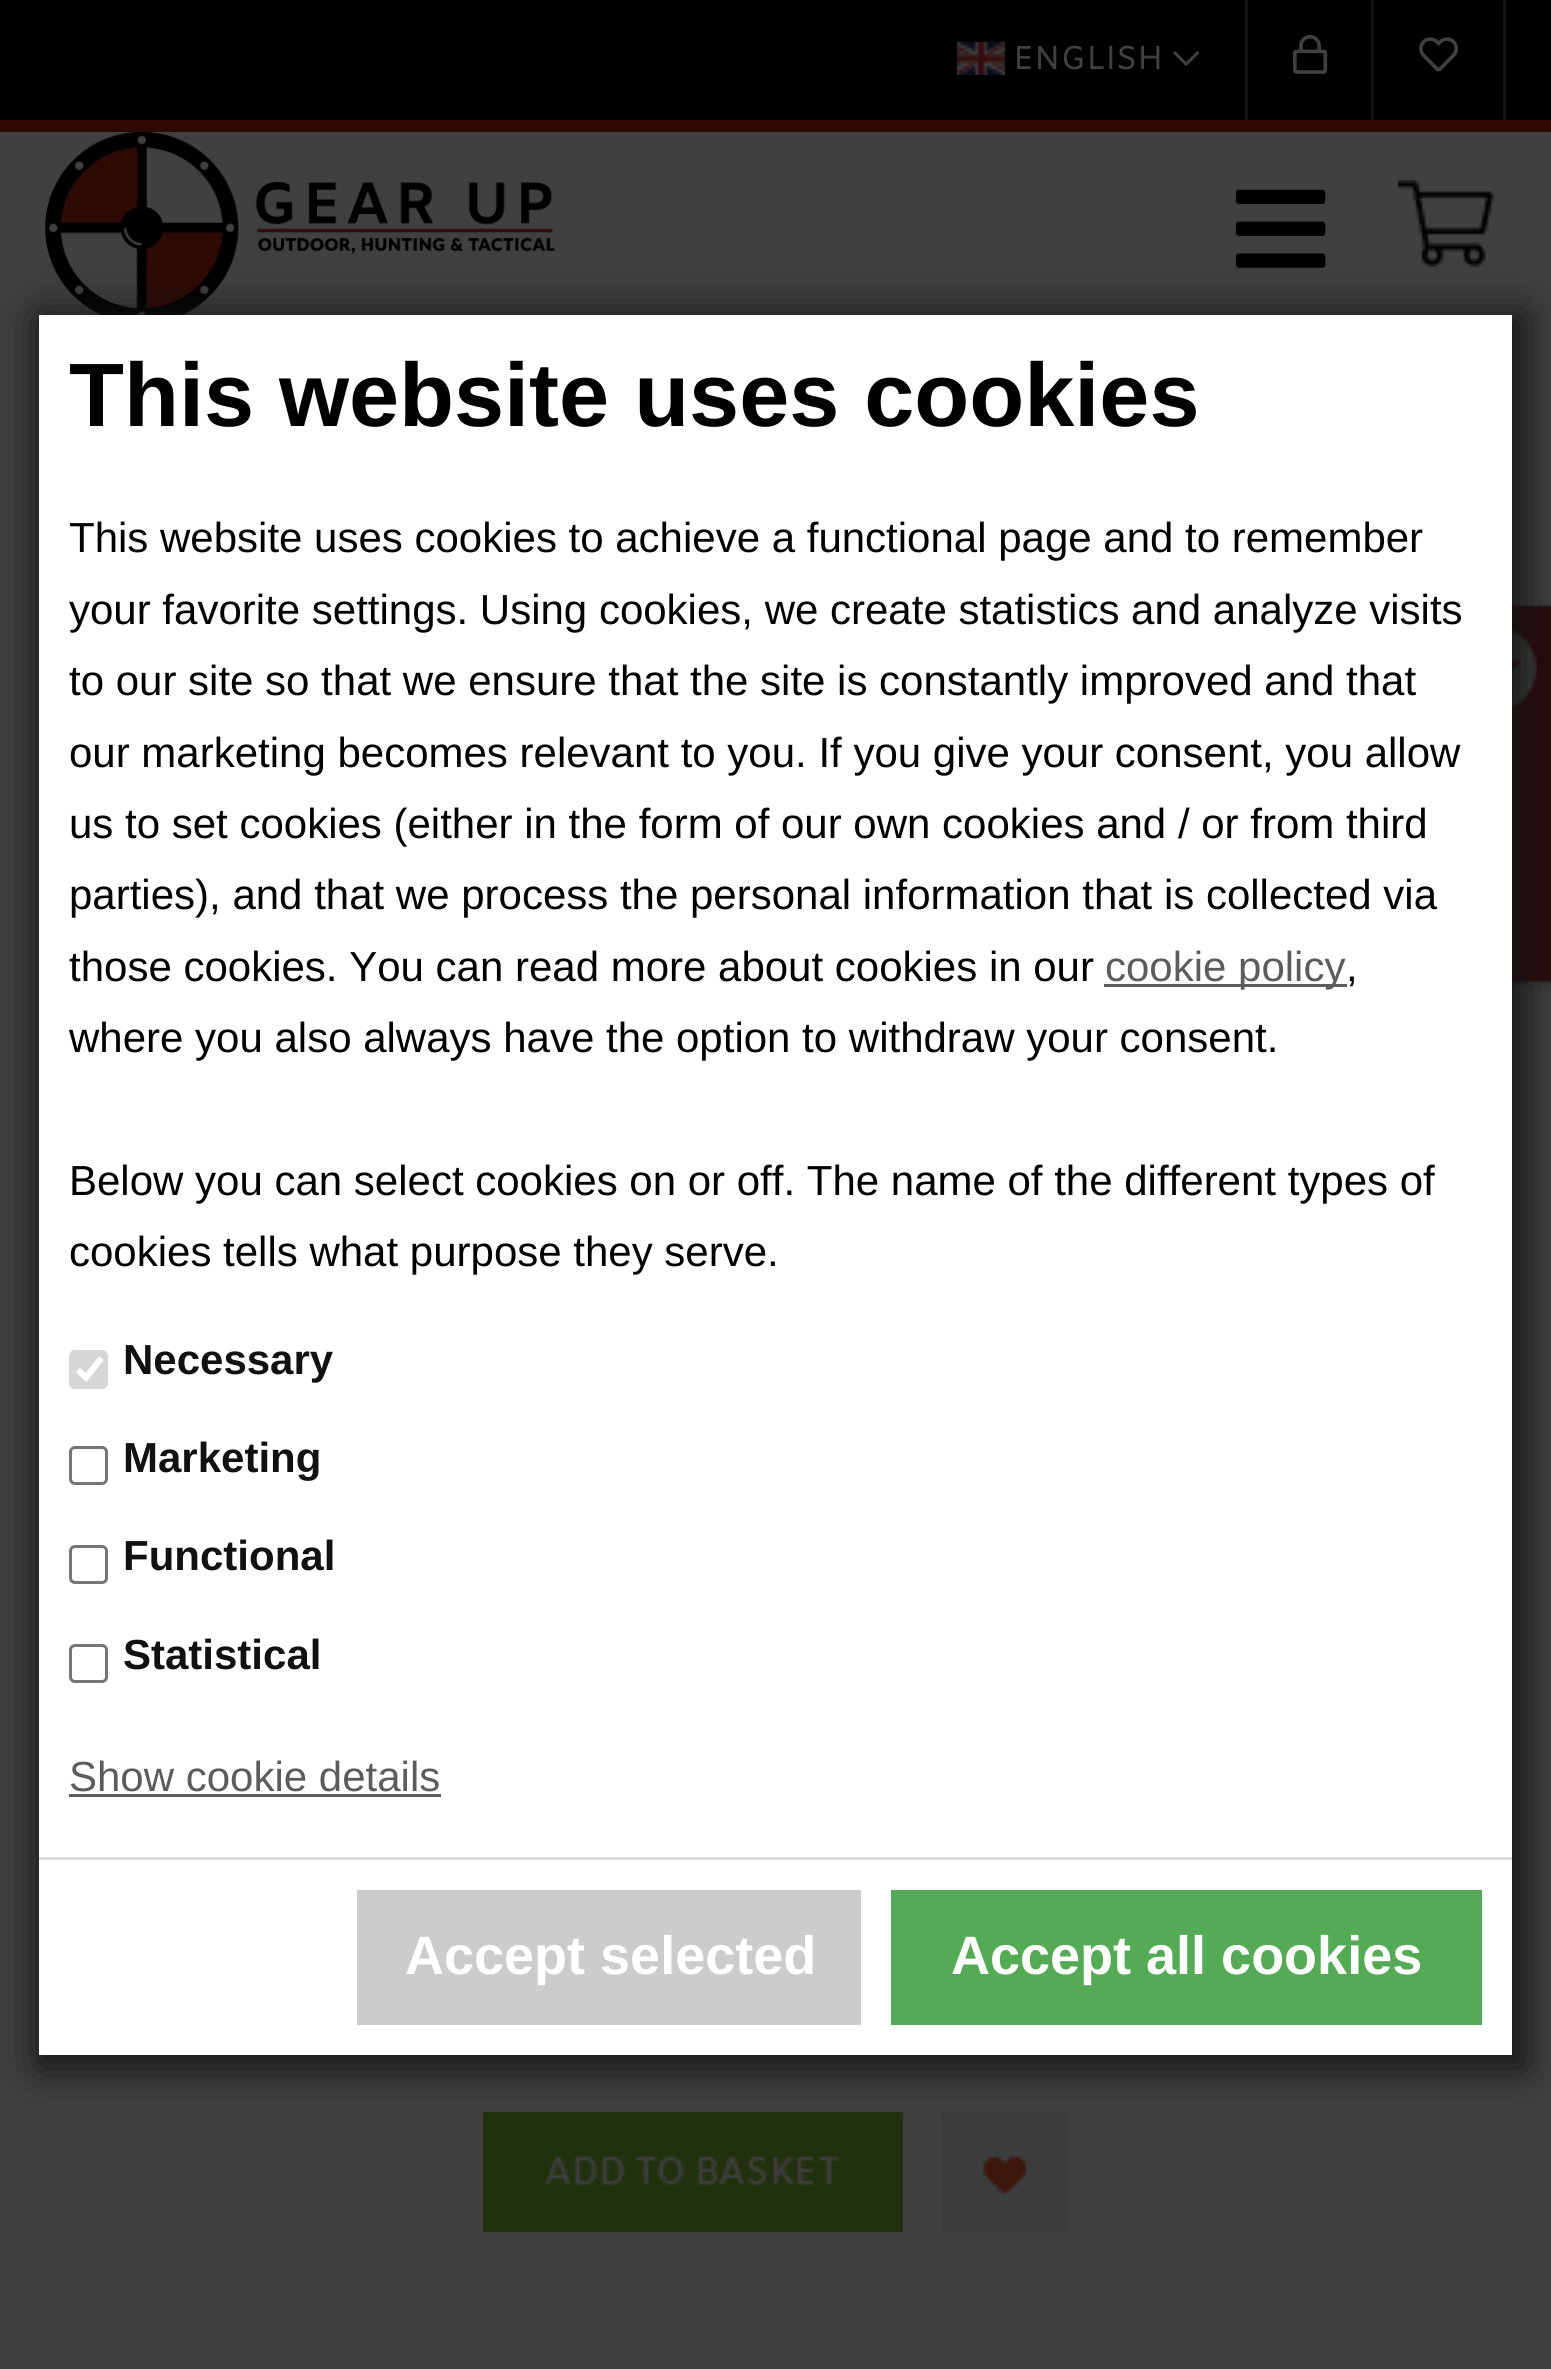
#include <cairo.h>
#include <math.h>
#include <stddef.h>


static void rgb(cairo_t *cr, int r, int g, int b)
{
	cairo_set_source_rgb(cr, r / 255.0, g / 255.0, b / 255.0);
}

static void face(cairo_t *cr, const char *family, double size, int italic, int bold)
{
	cairo_select_font_face(cr, family, italic ? CAIRO_FONT_SLANT_ITALIC : CAIRO_FONT_SLANT_NORMAL,
		bold ? CAIRO_FONT_WEIGHT_BOLD : CAIRO_FONT_WEIGHT_NORMAL);
	cairo_set_font_size(cr, size);
}

static void label(cairo_t *cr, double x, double y, const char *s)
{
	cairo_move_to(cr, x, y);
	cairo_show_text(cr, s);
}

static void rect(cairo_t *cr, double x, double y, double w, double h)
{
	cairo_rectangle(cr, x, y, w, h);
	cairo_fill(cr);
}

static void rrect(cairo_t *cr, double x, double y, double w, double h, double r)
{
	cairo_new_sub_path(cr);
	cairo_arc(cr, x + w - r, y + h - r, r, 0, M_PI / 2);
	cairo_arc(cr, x + r, y + h - r, r, M_PI / 2, M_PI);
	cairo_arc(cr, x + r, y + r, r, M_PI, 1.5 * M_PI);
	cairo_arc(cr, x + w - r, y + r, r, 1.5 * M_PI, 2 * M_PI);
	cairo_close_path(cr);
}

static void soft_shadow(cairo_t *cr, double x, double y, double w, double h, double r, double blur, double alpha)
{
	cairo_push_group_with_content(cr, CAIRO_CONTENT_ALPHA);
	cairo_set_operator(cr, CAIRO_OPERATOR_SOURCE);
	for (int i = 15; i >= -15 && fmin(w, h) + blur * i / 3 > 0; i -= 2) {
		double e = blur * i / 6;
		cairo_set_source_rgba(cr, 0, 0, 0, alpha * erfc((i - 1) / 8.5) / 2);
		rrect(cr, x - e, y - e, w + 2 * e, h + 2 * e, fmax(0, fmin(r + e + blur * .6, fmin(w, h) / 2 + e)));
		cairo_fill(cr);
	}
	cairo_pattern_t *soft = cairo_pop_group(cr);
	cairo_mask(cr, soft);
	cairo_pattern_destroy(soft);
}

static void image(cairo_t *cr, const char *path, double x, double y, double w, double h)
{
	cairo_surface_t *image = cairo_image_surface_create_from_png(path);
	cairo_save(cr);
	cairo_set_source_surface(cr, image, x, y);
	cairo_rectangle(cr, x, y, w, h);
	cairo_fill(cr);
	cairo_restore(cr);
	cairo_surface_destroy(image);
}

static void draw(cairo_t *cr) {
	rgb(cr, 64, 64, 64);
	cairo_paint(cr);
	rgb(cr, 0, 0, 0);
	rect(cr, 0, 0, 1551, 120);
	rgb(cr, 45, 9, 2);
	rect(cr, 0, 120, 1551, 12);
	image(cr, "image0.png", 957, 42, 48, 33);
	face(cr, "Amiko", 33, 0, 0);
	rgb(cr, 64, 64, 64);
	label(cr, 1013, 69, "ENGLISH");
	image(cr, "image1.png", 1173, 51, 27, 15);
	rgb(cr, 18, 18, 18);
	rect(cr, 1371, 0, 3, 120);
	rect(cr, 1245, 0, 3, 120);
	image(cr, "image2.png", 1293, 34, 35, 40);
	rect(cr, 1503, 0, 3, 120);
	image(cr, "image3.png", 1419, 37, 40, 35);
	image(cr, "image4.png", 45, 132, 510, 183);
	image(cr, "image5.png", 1236, 189, 90, 79);
	image(cr, "image6.png", 1398, 180, 96, 87);
	image(cr, "image7.png", 483, 2112, 420, 120);
	image(cr, "image8.png", 942, 2112, 126, 120);
	image(cr, "image9.png", 1512, 604, 39, 385);
	rgb(cr, 18, 18, 18);
	soft_shadow(cr, 39, 315, 1485, 1752, 0, 21, 1);
	rgb(cr, 255, 255, 255);
	rect(cr, 39, 315, 1473, 1740);
	face(cr, "Liberation Sans", 90, 0, 1);
	rgb(cr, 0, 0, 0);
	label(cr, 69, 426, "This website uses cookies");
	face(cr, "Liberation Sans", 42, 0, 0);
	label(cr, 69, 552, "This website uses cookies to achieve a functional page and to remember");
	label(cr, 69, 624, "your favorite settings. Using cookies, we create statistics and analyze visits");
	label(cr, 69, 695, "to our site so that we ensure that the site is constantly improved and that");
	label(cr, 69, 767, "our marketing becomes relevant to you. If you give your consent, you allow");
	label(cr, 69, 838, "us to set cookies (either in the form of our own cookies and / or from third");
	label(cr, 69, 909, "parties), and that we process the personal information that is collected via");
	label(cr, 69, 981, "those cookies. You can read more about cookies in our");
	rgb(cr, 92, 92, 92);
	rect(cr, 1104, 984, 243, 3);
	label(cr, 1105, 981, "cookie policy");
	rgb(cr, 0, 0, 0);
	label(cr, 1346, 981, ",");
	label(cr, 69, 1052, "where you also always have the option to withdraw your consent.");
	label(cr, 69, 1195, "Below you can select cookies on or off. The name of the different types of");
	label(cr, 69, 1266, "cookies tells what purpose they serve.");
	rgb(cr, 214, 214, 214);
	rrect(cr, 69, 1350, 39, 39, 6);
	cairo_fill(cr);
	cairo_new_path(cr);
	cairo_move_to(cr, 78, 1370);
	cairo_line_to(cr, 86, 1377.5);
	cairo_line_to(cr, 101.5, 1358);
	rgb(cr, 255, 255, 255);
	cairo_set_line_width(cr, 6.2);
	cairo_stroke(cr);
	face(cr, "Liberation Sans", 42, 0, 1);
	rgb(cr, 17, 17, 17);
	label(cr, 123, 1374, "Necessary");
	rrect(cr, 70.5, 1447.5, 36, 36, 4.5);
	rgb(cr, 118, 118, 118);
	cairo_set_line_width(cr, 3);
	cairo_stroke(cr);
	rgb(cr, 17, 17, 17);
	label(cr, 123, 1472, "Marketing");
	rrect(cr, 70.5, 1546.5, 36, 36, 4.5);
	rgb(cr, 118, 118, 118);
	cairo_stroke(cr);
	rgb(cr, 17, 17, 17);
	label(cr, 123, 1570, "Functional");
	rrect(cr, 70.5, 1645.5, 36, 36, 4.5);
	rgb(cr, 118, 118, 118);
	cairo_stroke(cr);
	rgb(cr, 17, 17, 17);
	label(cr, 123, 1669, "Statistical");
	face(cr, "Liberation Sans", 42, 0, 0);
	rgb(cr, 92, 92, 92);
	label(cr, 69, 1791, "Show cookie details");
	rect(cr, 69, 1794, 372, 3);
	rgb(cr, 221, 221, 221);
	rect(cr, 39, 1857, 1473, 3);
	rgb(cr, 204, 204, 204);
	rect(cr, 357, 1890, 504, 135);
	face(cr, "Liberation Sans", 54, 0, 1);
	rgb(cr, 255, 255, 255);
	label(cr, 405, 1974, "Accept selected");
	rgb(cr, 85, 171, 85);
	rect(cr, 891, 1890, 591, 135);
	rgb(cr, 255, 255, 255);
	label(cr, 951, 1974, "Accept all cookies");
}

int main(void) {
	cairo_surface_t *surface = cairo_image_surface_create(CAIRO_FORMAT_RGB24, 1551, 2369);
	cairo_t *cr = cairo_create(surface);
	cairo_font_options_t *options = cairo_font_options_create();
	cairo_font_options_set_hint_metrics(options, CAIRO_HINT_METRICS_OFF);
	cairo_font_options_set_hint_style(options, CAIRO_HINT_STYLE_NONE);
	cairo_set_font_options(cr, options);
	cairo_set_miter_limit(cr, 4);
	draw(cr);
	cairo_surface_write_to_png(surface, "render.png");
	cairo_font_options_destroy(options);
	cairo_destroy(cr);
	cairo_surface_destroy(surface);
	return 0;
}
